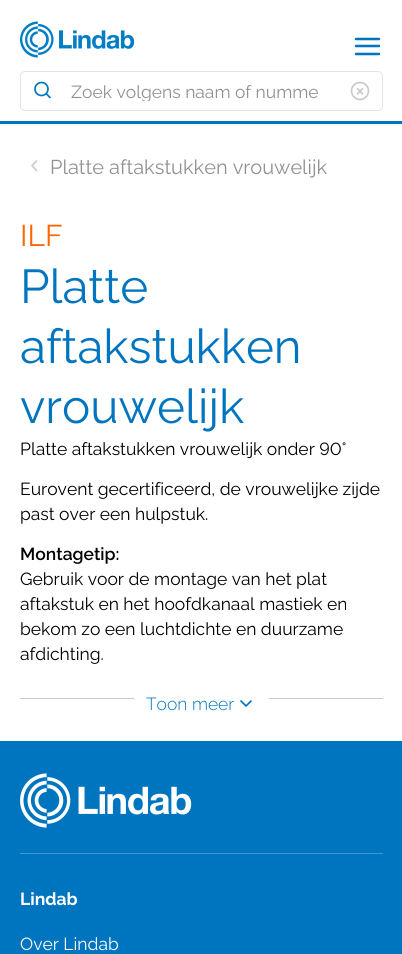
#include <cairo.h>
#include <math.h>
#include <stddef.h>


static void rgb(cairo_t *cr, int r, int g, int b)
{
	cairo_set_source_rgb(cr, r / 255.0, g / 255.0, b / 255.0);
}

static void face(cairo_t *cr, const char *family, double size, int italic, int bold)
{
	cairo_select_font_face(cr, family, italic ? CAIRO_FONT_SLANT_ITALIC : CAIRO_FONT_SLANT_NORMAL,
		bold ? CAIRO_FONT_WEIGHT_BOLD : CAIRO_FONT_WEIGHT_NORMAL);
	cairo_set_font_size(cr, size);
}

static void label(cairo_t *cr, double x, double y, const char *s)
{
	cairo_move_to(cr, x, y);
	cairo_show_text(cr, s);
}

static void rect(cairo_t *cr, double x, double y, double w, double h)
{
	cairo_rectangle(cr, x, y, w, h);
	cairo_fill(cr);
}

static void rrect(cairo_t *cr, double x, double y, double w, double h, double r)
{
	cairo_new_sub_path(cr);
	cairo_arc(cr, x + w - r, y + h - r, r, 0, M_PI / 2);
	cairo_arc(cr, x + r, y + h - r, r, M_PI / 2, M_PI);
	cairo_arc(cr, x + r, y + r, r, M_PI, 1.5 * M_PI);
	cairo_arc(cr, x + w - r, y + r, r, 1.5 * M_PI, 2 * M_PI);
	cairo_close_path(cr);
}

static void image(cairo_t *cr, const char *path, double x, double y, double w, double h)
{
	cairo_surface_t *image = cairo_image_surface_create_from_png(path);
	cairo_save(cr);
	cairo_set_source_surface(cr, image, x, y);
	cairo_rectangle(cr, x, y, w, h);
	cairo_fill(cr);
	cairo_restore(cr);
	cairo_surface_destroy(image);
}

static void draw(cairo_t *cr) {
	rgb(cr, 255, 255, 255);
	cairo_paint(cr);
	rgb(cr, 0, 117, 191);
	rect(cr, 0, 121, 402, 3);
	image(cr, "image0.png", 20, 21, 115, 37);
	cairo_new_path(cr);
	cairo_move_to(cr, 356, 46);
	cairo_line_to(cr, 379, 46);
	cairo_move_to(cr, 356, 39);
	cairo_line_to(cr, 379, 39);
	cairo_move_to(cr, 356, 54);
	cairo_line_to(cr, 379, 54);
	cairo_set_line_width(cr, 2.5);
	cairo_set_line_cap(cr, CAIRO_LINE_CAP_ROUND);
	cairo_set_line_join(cr, CAIRO_LINE_JOIN_ROUND);
	cairo_stroke(cr);
	rrect(cr, 20.5, 71.5, 362, 39, 4.5);
	rgb(cr, 228, 228, 228);
	cairo_set_line_width(cr, 1);
	cairo_set_line_cap(cr, CAIRO_LINE_CAP_BUTT);
	cairo_set_line_join(cr, CAIRO_LINE_JOIN_MITER);
	cairo_stroke(cr);
	cairo_arc(cr, 41.5, 89, 6.5, 0, 2 * M_PI);
	rgb(cr, 0, 117, 191);
	cairo_set_line_width(cr, 1.7);
	cairo_stroke(cr);
	cairo_new_path(cr);
	cairo_move_to(cr, 50, 97.5);
	cairo_line_to(cr, 46.5, 94);
	cairo_set_line_cap(cr, CAIRO_LINE_CAP_ROUND);
	cairo_set_line_join(cr, CAIRO_LINE_JOIN_ROUND);
	cairo_stroke(cr);
	cairo_save(cr);
	cairo_rectangle(cr, 71, 81, 250, 20);
	cairo_clip(cr);
	face(cr, "Raleway Thin", 17.5, 0, 0);
	rgb(cr, 145, 145, 145);
	label(cr, 71, 98, "Zoek volgens naam of numme");
	cairo_restore(cr);
	image(cr, "image1.png", 350, 81, 20, 20);
	cairo_new_path(cr);
	cairo_move_to(cr, 36.5, 170.5);
	cairo_line_to(cr, 32, 165.5);
	cairo_line_to(cr, 36.5, 161);
	rgb(cr, 201, 201, 201);
	cairo_set_line_width(cr, 1.6);
	cairo_stroke(cr);
	face(cr, "Raleway Thin", 20, 0, 0);
	rgb(cr, 145, 145, 145);
	label(cr, 50, 174, "Platte aftakstukken vrouwelijk");
	face(cr, "Raleway Thin", 30, 0, 0);
	rgb(cr, 255, 102, 0);
	label(cr, 20, 246, "ILF");
	face(cr, "Raleway Thin", 47.5, 0, 0);
	rgb(cr, 0, 117, 191);
	label(cr, 20, 303, "Platte");
	label(cr, 20, 363, "aftakstukken");
	label(cr, 20, 423, "vrouwelijk");
	face(cr, "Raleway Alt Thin", 17.5, 0, 0);
	rgb(cr, 0, 0, 0);
	label(cr, 20, 455, "Platte aftakstukken vrouwelijk onder 90°");
	face(cr, "Raleway Thin", 17.5, 0, 0);
	label(cr, 20, 495, "Eurovent gecertificeerd, de vrouwelijke zijde");
	label(cr, 20, 520, "past over een hulpstuk.");
	face(cr, "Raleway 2 Thin", 17.5, 0, 0);
	label(cr, 20, 560, "Montagetip:");
	face(cr, "Raleway Thin", 17.5, 0, 0);
	label(cr, 20, 585, "Gebruik voor de montage van het plat");
	label(cr, 20, 610, "aftakstuk en het hoofdkanaal mastiek en");
	label(cr, 20, 635, "bekom zo een luchtdichte en duurzame");
	label(cr, 20, 660, "afdichting.");
	rgb(cr, 201, 201, 201);
	rect(cr, 20, 698, 363, 1);
	rgb(cr, 255, 255, 255);
	rect(cr, 134, 698, 135, 1);
	face(cr, "Raleway Light", 17.5, 0, 0);
	rgb(cr, 0, 117, 191);
	label(cr, 146, 710, "Toon meer");
	cairo_new_path(cr);
	cairo_move_to(cr, 241, 701);
	cairo_line_to(cr, 246, 706);
	cairo_line_to(cr, 251, 701);
	cairo_set_line_width(cr, 1.7);
	cairo_stroke(cr);
	rect(cr, 0, 741, 402, 213);
	image(cr, "image2.png", 20, 773, 172, 55);
	rgb(cr, 64, 152, 207);
	rect(cr, 20, 853, 363, 1);
	face(cr, "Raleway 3 Thin", 17.5, 0, 0);
	rgb(cr, 255, 255, 255);
	label(cr, 20, 905, "Lindab");
	face(cr, "Raleway Thin", 17.5, 0, 0);
	label(cr, 20, 950, "Over Lindab");
}

int main(void) {
	cairo_surface_t *surface = cairo_image_surface_create(CAIRO_FORMAT_RGB24, 402, 954);
	cairo_t *cr = cairo_create(surface);
	cairo_font_options_t *options = cairo_font_options_create();
	cairo_font_options_set_hint_metrics(options, CAIRO_HINT_METRICS_OFF);
	cairo_font_options_set_hint_style(options, CAIRO_HINT_STYLE_NONE);
	cairo_set_font_options(cr, options);
	cairo_set_miter_limit(cr, 4);
	draw(cr);
	cairo_surface_write_to_png(surface, "render.png");
	cairo_font_options_destroy(options);
	cairo_destroy(cr);
	cairo_surface_destroy(surface);
	return 0;
}
